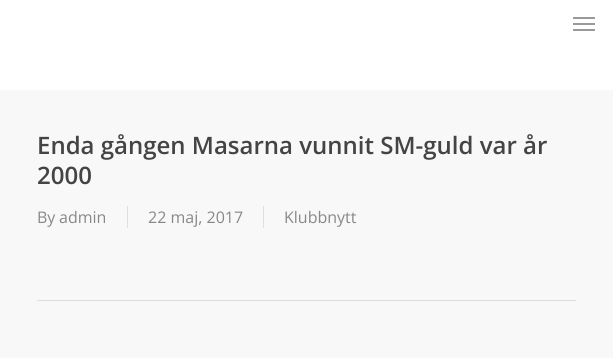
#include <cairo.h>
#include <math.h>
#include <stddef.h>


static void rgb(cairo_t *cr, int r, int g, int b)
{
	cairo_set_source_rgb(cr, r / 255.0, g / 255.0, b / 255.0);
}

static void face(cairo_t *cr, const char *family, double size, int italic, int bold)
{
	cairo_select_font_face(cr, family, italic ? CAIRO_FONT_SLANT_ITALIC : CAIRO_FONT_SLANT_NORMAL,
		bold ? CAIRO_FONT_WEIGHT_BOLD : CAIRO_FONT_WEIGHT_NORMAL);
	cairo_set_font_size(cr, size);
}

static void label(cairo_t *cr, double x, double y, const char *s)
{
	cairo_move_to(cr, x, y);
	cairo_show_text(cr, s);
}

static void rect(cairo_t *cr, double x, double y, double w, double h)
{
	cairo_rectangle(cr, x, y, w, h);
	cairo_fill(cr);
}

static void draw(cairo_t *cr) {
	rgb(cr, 255, 255, 255);
	cairo_paint(cr);
	rgb(cr, 153, 153, 153);
	rect(cr, 573, 17, 22, 2);
	rect(cr, 573, 29, 22, 2);
	rect(cr, 573, 23, 22, 2);
	rgb(cr, 248, 248, 248);
	rect(cr, 0, 90, 613, 268);
	rgb(cr, 221, 221, 221);
	rect(cr, 37, 300, 539, 1);
	face(cr, "Open Sans SemiBold", 24, 0, 0);
	rgb(cr, 68, 68, 68);
	label(cr, 37, 154, "Enda gången Masarna vunnit SM-guld var år");
	label(cr, 37, 184, "2000");
	face(cr, "Open Sans", 16, 0, 0);
	rgb(cr, 136, 136, 136);
	label(cr, 37, 223, "By");
	label(cr, 59, 223, "admin");
	label(cr, 148, 223, "22 maj, 2017");
	rgb(cr, 223, 223, 223);
	rect(cr, 127, 206, 1, 22);
	rgb(cr, 136, 136, 136);
	label(cr, 284, 223, "Klubbnytt");
	rgb(cr, 223, 223, 223);
	rect(cr, 263, 206, 1, 22);
}

int main(void) {
	cairo_surface_t *surface = cairo_image_surface_create(CAIRO_FORMAT_RGB24, 613, 358);
	cairo_t *cr = cairo_create(surface);
	cairo_font_options_t *options = cairo_font_options_create();
	cairo_font_options_set_hint_metrics(options, CAIRO_HINT_METRICS_OFF);
	cairo_font_options_set_hint_style(options, CAIRO_HINT_STYLE_NONE);
	cairo_set_font_options(cr, options);
	cairo_set_miter_limit(cr, 4);
	draw(cr);
	cairo_surface_write_to_png(surface, "render.png");
	cairo_font_options_destroy(options);
	cairo_destroy(cr);
	cairo_surface_destroy(surface);
	return 0;
}
